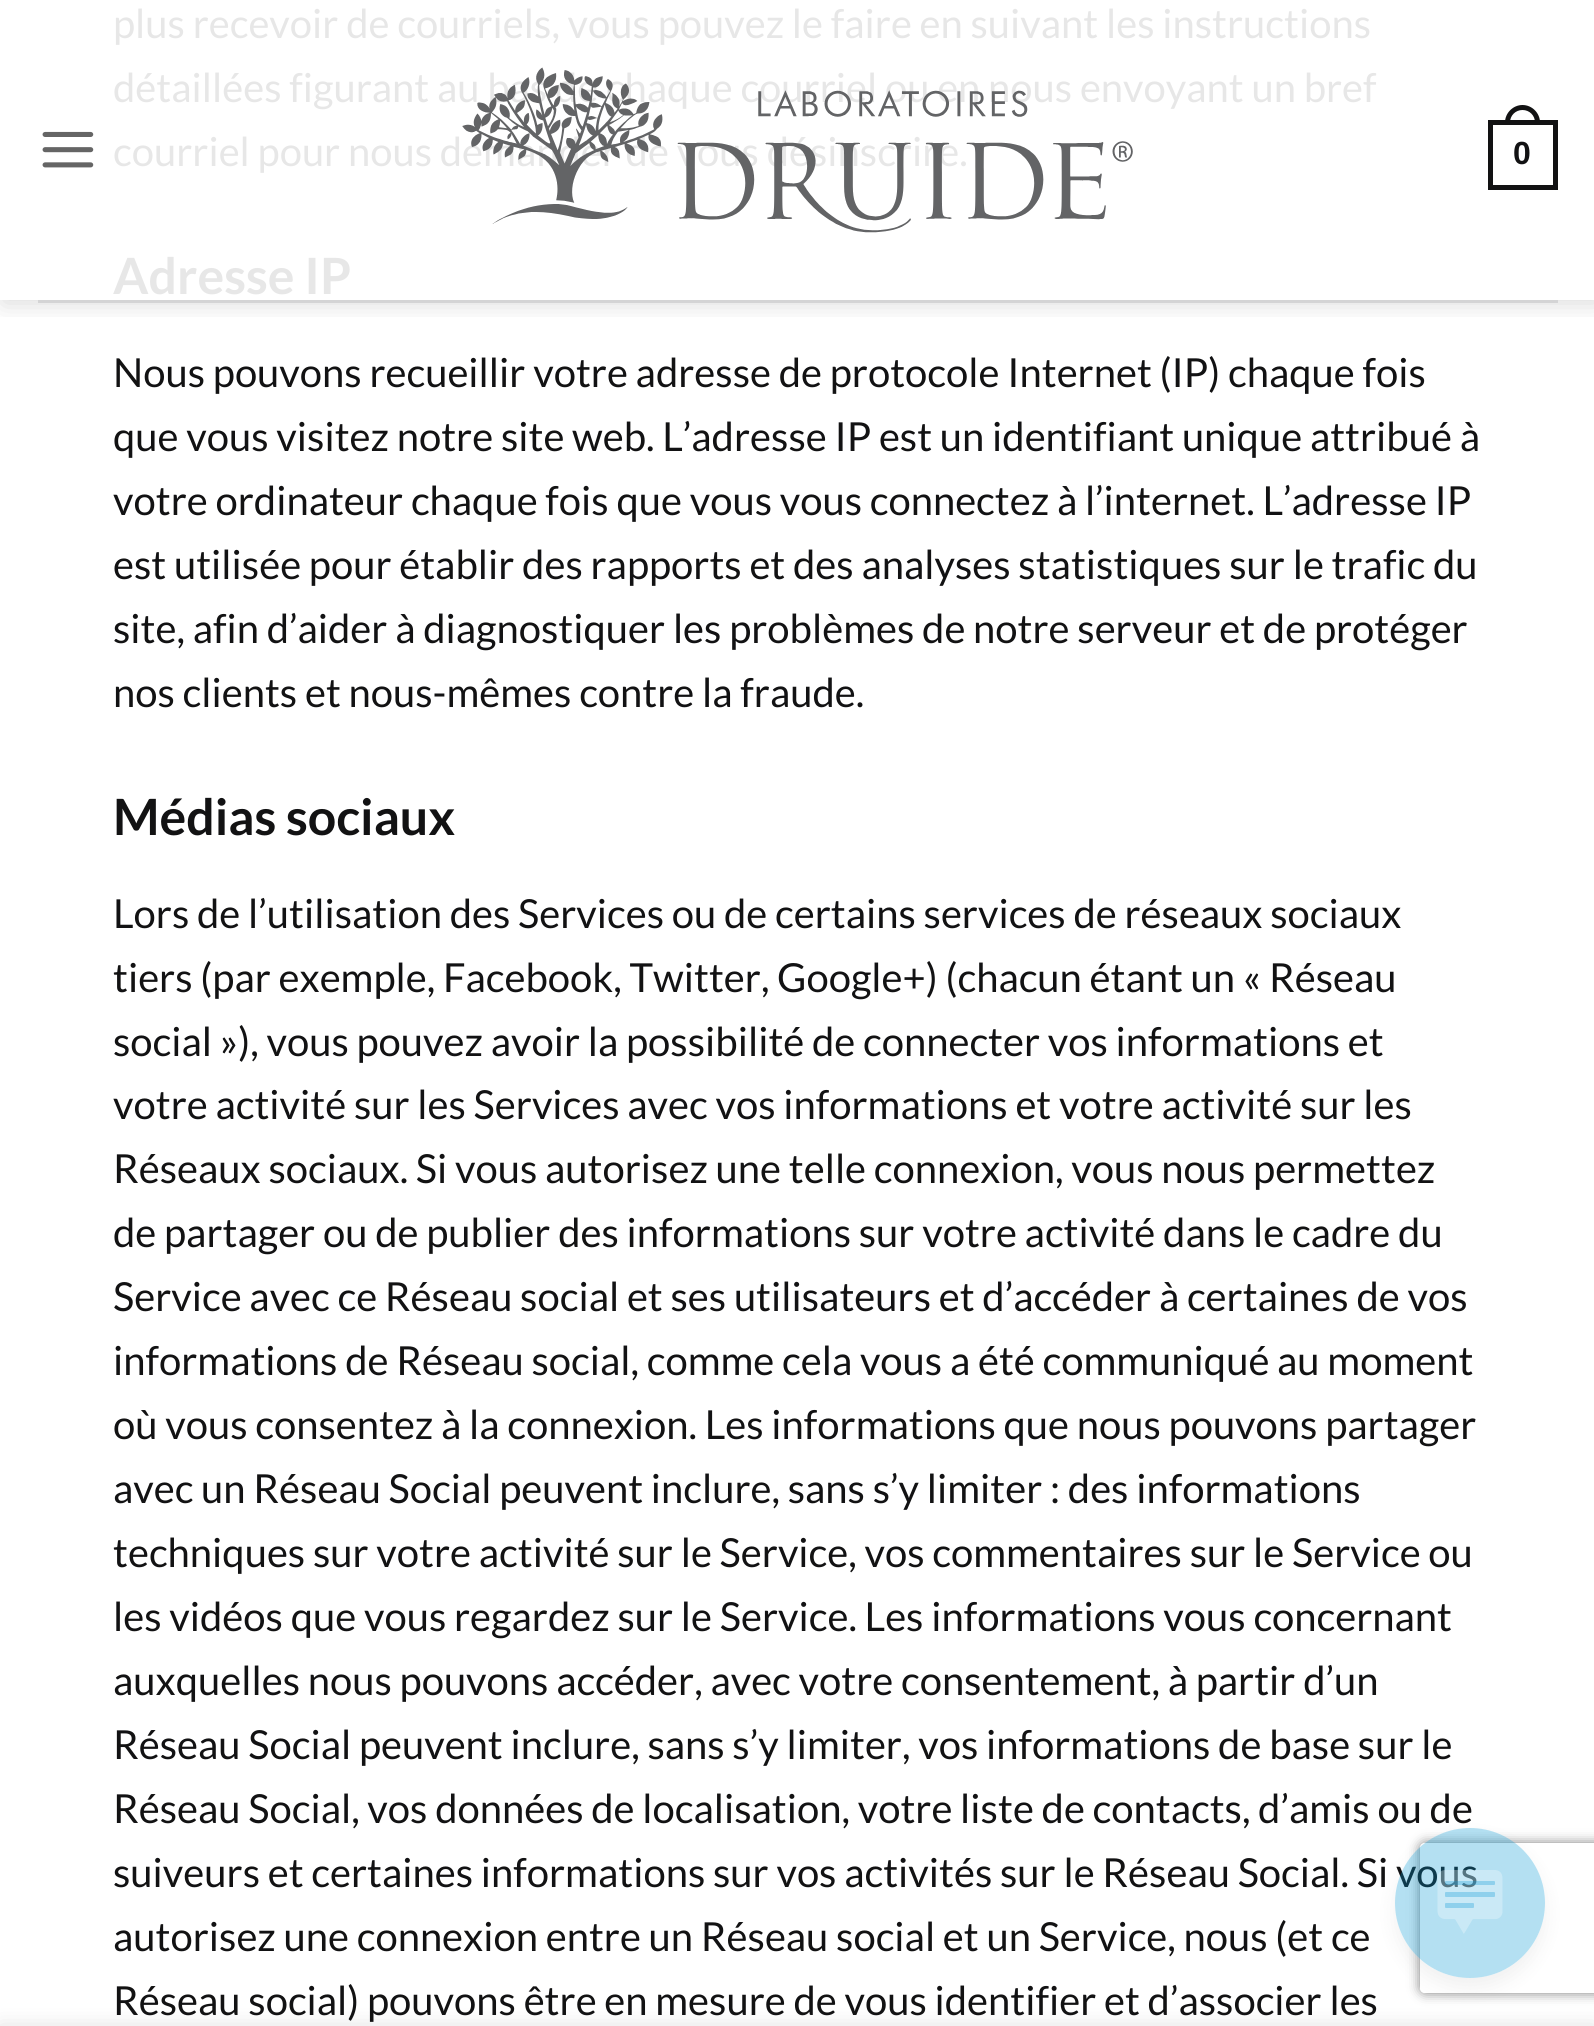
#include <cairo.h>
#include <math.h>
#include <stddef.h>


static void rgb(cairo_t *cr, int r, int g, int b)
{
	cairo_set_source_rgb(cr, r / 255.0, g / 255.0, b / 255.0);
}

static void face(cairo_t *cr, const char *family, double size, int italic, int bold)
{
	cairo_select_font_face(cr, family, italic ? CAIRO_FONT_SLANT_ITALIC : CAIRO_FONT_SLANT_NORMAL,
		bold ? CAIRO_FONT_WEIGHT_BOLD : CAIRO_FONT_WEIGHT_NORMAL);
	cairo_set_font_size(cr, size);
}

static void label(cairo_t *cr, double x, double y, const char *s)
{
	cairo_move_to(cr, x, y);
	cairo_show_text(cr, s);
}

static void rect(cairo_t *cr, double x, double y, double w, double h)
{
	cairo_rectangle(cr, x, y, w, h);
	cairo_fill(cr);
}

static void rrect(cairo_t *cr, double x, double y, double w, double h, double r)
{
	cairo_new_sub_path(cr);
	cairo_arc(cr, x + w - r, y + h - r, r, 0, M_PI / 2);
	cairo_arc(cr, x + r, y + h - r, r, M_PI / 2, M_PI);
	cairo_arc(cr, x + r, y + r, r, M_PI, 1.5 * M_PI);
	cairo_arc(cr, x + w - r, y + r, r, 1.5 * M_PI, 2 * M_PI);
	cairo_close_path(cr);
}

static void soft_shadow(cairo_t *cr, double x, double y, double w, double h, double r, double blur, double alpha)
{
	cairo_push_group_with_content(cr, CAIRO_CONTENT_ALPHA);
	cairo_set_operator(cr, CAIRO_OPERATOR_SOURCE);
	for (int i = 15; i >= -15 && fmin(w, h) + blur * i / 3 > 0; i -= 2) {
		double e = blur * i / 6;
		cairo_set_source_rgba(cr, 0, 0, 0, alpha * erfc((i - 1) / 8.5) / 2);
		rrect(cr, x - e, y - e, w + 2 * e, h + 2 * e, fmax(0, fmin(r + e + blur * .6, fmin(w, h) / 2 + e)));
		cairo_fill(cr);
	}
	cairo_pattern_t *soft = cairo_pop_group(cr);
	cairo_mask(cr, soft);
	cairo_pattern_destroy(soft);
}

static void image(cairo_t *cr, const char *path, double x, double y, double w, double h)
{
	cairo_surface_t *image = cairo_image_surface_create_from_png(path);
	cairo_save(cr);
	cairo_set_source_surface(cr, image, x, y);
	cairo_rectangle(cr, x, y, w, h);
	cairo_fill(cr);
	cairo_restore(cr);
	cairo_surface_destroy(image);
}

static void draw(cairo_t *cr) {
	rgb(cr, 255, 255, 255);
	cairo_paint(cr);
	face(cr, "Lato", 40, 0, 0);
	rgb(cr, 231, 231, 231);
	label(cr, 113, 38, "plus recevoir de courriels, vous pouvez le faire en suivant les instructions");
	label(cr, 113, 102, "détaillées figurant au bas de chaque courriel ou en nous envoyant un bref");
	label(cr, 113, 166, "courriel pour nous demander de vous désinscrire.");
	face(cr, "Lato", 50, 0, 1);
	label(cr, 113, 294, "Adresse IP");
	face(cr, "Lato", 40, 0, 0);
	rgb(cr, 18, 18, 19);
	label(cr, 113, 387, "Nous pouvons recueillir votre adresse de protocole Internet (IP) chaque fois");
	label(cr, 113, 451, "que vous visitez notre site web. L’adresse IP est un identifiant unique attribué à");
	label(cr, 113, 515, "votre ordinateur chaque fois que vous vous connectez à l’internet. L’adresse IP");
	label(cr, 113, 579, "est utilisée pour établir des rapports et des analyses statistiques sur le trafic du");
	label(cr, 113, 643, "site, afin d’aider à diagnostiquer les problèmes de notre serveur et de protéger");
	label(cr, 113, 707, "nos clients et nous-mêmes contre la fraude.");
	face(cr, "Lato", 50, 0, 1);
	label(cr, 113, 835, "Médias sociaux");
	face(cr, "Lato", 40, 0, 0);
	label(cr, 113, 928, "Lors de l’utilisation des Services ou de certains services de réseaux sociaux");
	label(cr, 113, 992, "tiers (par exemple, Facebook, Twitter, Google+) (chacun étant un « Réseau");
	label(cr, 113, 1056, "social »), vous pouvez avoir la possibilité de connecter vos informations et");
	label(cr, 113, 1119, "votre activité sur les Services avec vos informations et votre activité sur les");
	label(cr, 113, 1183, "Réseaux sociaux. Si vous autorisez une telle connexion, vous nous permettez");
	label(cr, 113, 1247, "de partager ou de publier des informations sur votre activité dans le cadre du");
	label(cr, 113, 1311, "Service avec ce Réseau social et ses utilisateurs et d’accéder à certaines de vos");
	label(cr, 113, 1375, "informations de Réseau social, comme cela vous a été communiqué au moment");
	label(cr, 113, 1439, "où vous consentez à la connexion. Les informations que nous pouvons partager");
	label(cr, 113, 1503, "avec un Réseau Social peuvent inclure, sans s’y limiter : des informations");
	label(cr, 113, 1567, "techniques sur votre activité sur le Service, vos commentaires sur le Service ou");
	label(cr, 113, 1631, "les vidéos que vous regardez sur le Service. Les informations vous concernant");
	label(cr, 113, 1695, "auxquelles nous pouvons accéder, avec votre consentement, à partir d’un");
	label(cr, 113, 1759, "Réseau Social peuvent inclure, sans s’y limiter, vos informations de base sur le");
	cairo_save(cr);
	cairo_set_fill_rule(cr, CAIRO_FILL_RULE_EVEN_ODD);
	cairo_new_path(cr);
	cairo_move_to(cr, 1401, 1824);
	cairo_line_to(cr, 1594, 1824);
	cairo_line_to(cr, 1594, 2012);
	cairo_line_to(cr, 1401, 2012);
	cairo_close_path(cr);
	cairo_move_to(cr, 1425, 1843);
	cairo_line_to(cr, 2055, 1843);
	cairo_curve_to(cr, 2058, 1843, 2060, 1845, 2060, 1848);
	cairo_line_to(cr, 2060, 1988);
	cairo_curve_to(cr, 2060, 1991, 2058, 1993, 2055, 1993);
	cairo_line_to(cr, 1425, 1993);
	cairo_curve_to(cr, 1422, 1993, 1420, 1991, 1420, 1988);
	cairo_line_to(cr, 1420, 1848);
	cairo_curve_to(cr, 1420, 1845, 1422, 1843, 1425, 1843);
	cairo_close_path(cr);
	cairo_clip(cr);
	rgb(cr, 128, 128, 128);
	soft_shadow(cr, 1420, 1843, 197, 150, 5, 6, 1);
	cairo_restore(cr);
	label(cr, 113, 1823, "Réseau Social, vos données de localisation, votre liste de contacts, d’amis ou de");
	label(cr, 113, 1887, "suiveurs et certaines informations sur vos activités sur le Réseau Social. Si vous");
	label(cr, 113, 1951, "autorisez une connexion entre un Réseau social et un Service, nous (et ce");
	label(cr, 113, 2015, "Réseau social) pouvons être en mesure de vous identifier et d’associer les");
	cairo_save(cr);
	cairo_rectangle(cr, 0, 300, 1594, 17);
	cairo_clip(cr);
	rgb(cr, 0, 0, 0);
	soft_shadow(cr, 3, 3, 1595, 300, 0, 12.5, 0.15);
	cairo_restore(cr);
	image(cr, "image0.png", 42, 131, 52, 37);
	image(cr, "image1.png", 462, 67, 671, 166);
	cairo_rectangle(cr, 1490.5, 122.5, 65, 65);
	cairo_set_line_width(cr, 5);
	cairo_stroke(cr);
	cairo_set_fill_rule(cr, CAIRO_FILL_RULE_EVEN_ODD);
	cairo_new_path(cr);
	cairo_move_to(cr, 1522.5, 105);
	cairo_curve_to(cr, 1532, 105, 1540, 113, 1540, 122.5);
	cairo_line_to(cr, 1540, 125);
	cairo_line_to(cr, 1505, 125);
	cairo_line_to(cr, 1505, 122.5);
	cairo_curve_to(cr, 1505, 113, 1513, 105, 1522.5, 105);
	cairo_close_path(cr);
	cairo_move_to(cr, 1522.5, 110);
	cairo_curve_to(cr, 1529.5, 110, 1535, 115.5, 1535, 122.5);
	cairo_line_to(cr, 1535, 125);
	cairo_line_to(cr, 1510, 125);
	cairo_line_to(cr, 1510, 122.5);
	cairo_curve_to(cr, 1510, 115.5, 1515.5, 110, 1522.5, 110);
	cairo_close_path(cr);
	cairo_fill(cr);
	face(cr, "Liberation Sans", 32, 0, 1);
	label(cr, 1513, 164, "0");
	rgb(cr, 212, 212, 213);
	rect(cr, 38, 300, 1520, 3);
	cairo_save(cr);
	cairo_new_path(cr);
	cairo_move_to(cr, 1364, 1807);
	cairo_line_to(cr, 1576, 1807);
	cairo_line_to(cr, 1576, 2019);
	cairo_line_to(cr, 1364, 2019);
	cairo_close_path(cr);
	cairo_move_to(cr, 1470, 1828);
	cairo_curve_to(cr, 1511.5, 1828, 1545, 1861.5, 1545, 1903);
	cairo_curve_to(cr, 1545, 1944.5, 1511.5, 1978, 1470, 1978);
	cairo_curve_to(cr, 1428.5, 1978, 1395, 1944.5, 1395, 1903);
	cairo_curve_to(cr, 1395, 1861.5, 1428.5, 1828, 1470, 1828);
	cairo_close_path(cr);
	cairo_clip(cr);
	rgb(cr, 0, 0, 0);
	soft_shadow(cr, 1395, 1838, 150, 150, 75, 10, 0.06);
	cairo_restore(cr);
	cairo_set_source_rgba(cr, 0.02, 0.588, 0.831, 0.3);
	cairo_arc(cr, 1470, 1903, 75, 0, 2 * M_PI);
	cairo_fill(cr);
	image(cr, "image2.png", 1437, 1870, 66, 64);
	rgb(cr, 0, 0, 0);
	soft_shadow(cr, 0, 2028, 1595, 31, 0, 11, 0.14);
}

int main(void) {
	cairo_surface_t *surface = cairo_image_surface_create(CAIRO_FORMAT_RGB24, 1594, 2026);
	cairo_t *cr = cairo_create(surface);
	cairo_font_options_t *options = cairo_font_options_create();
	cairo_font_options_set_hint_metrics(options, CAIRO_HINT_METRICS_OFF);
	cairo_font_options_set_hint_style(options, CAIRO_HINT_STYLE_NONE);
	cairo_set_font_options(cr, options);
	cairo_set_miter_limit(cr, 4);
	draw(cr);
	cairo_surface_write_to_png(surface, "render.png");
	cairo_font_options_destroy(options);
	cairo_destroy(cr);
	cairo_surface_destroy(surface);
	return 0;
}
